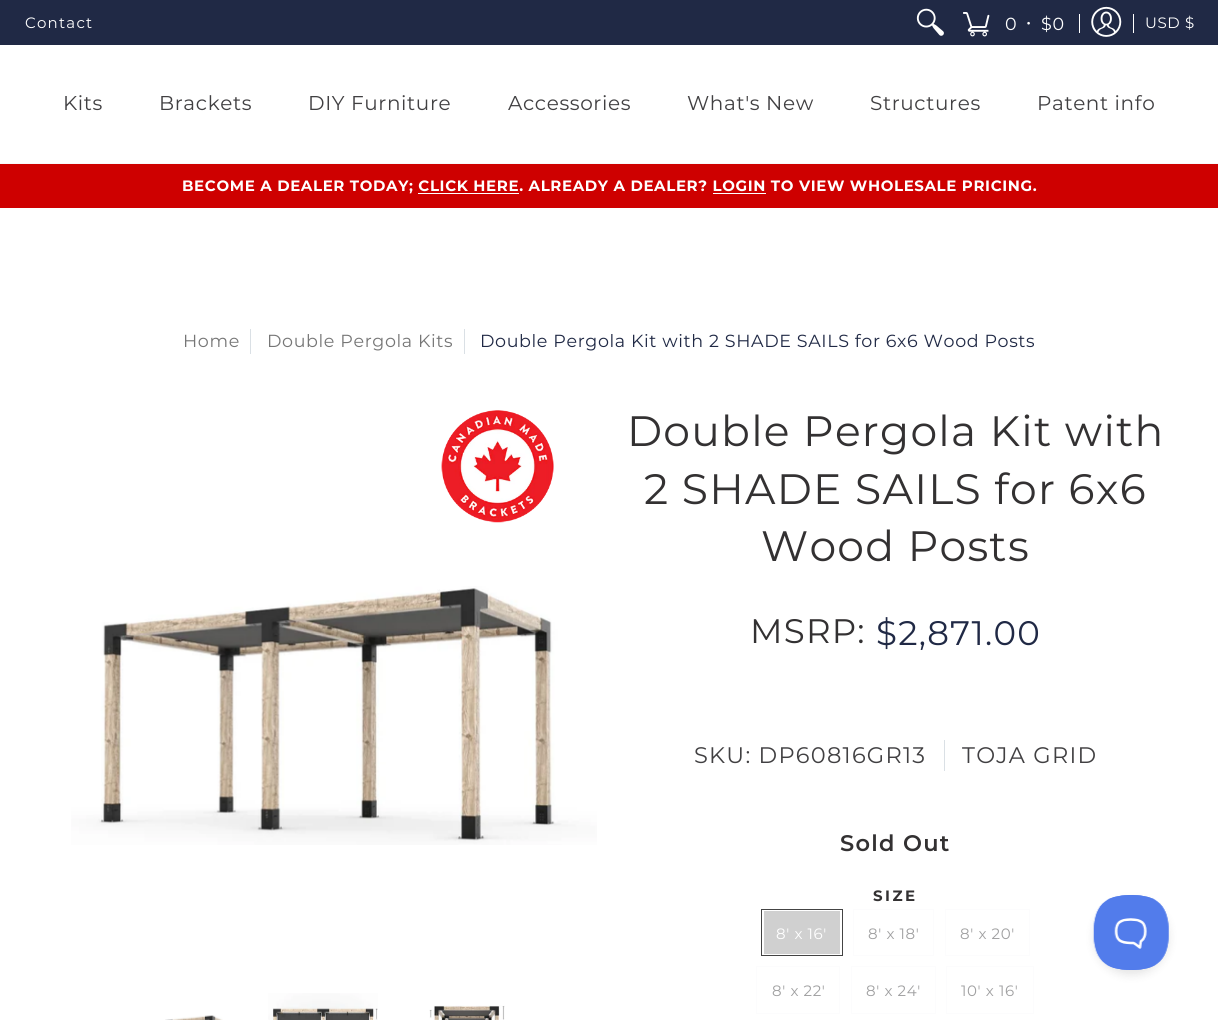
#include <cairo.h>
#include <math.h>
#include <stddef.h>


static void rgb(cairo_t *cr, int r, int g, int b)
{
	cairo_set_source_rgb(cr, r / 255.0, g / 255.0, b / 255.0);
}

static void face(cairo_t *cr, const char *family, double size, int italic, int bold)
{
	cairo_select_font_face(cr, family, italic ? CAIRO_FONT_SLANT_ITALIC : CAIRO_FONT_SLANT_NORMAL,
		bold ? CAIRO_FONT_WEIGHT_BOLD : CAIRO_FONT_WEIGHT_NORMAL);
	cairo_set_font_size(cr, size);
}

static void tracked(cairo_t *cr, double x, double y, const char *s, double letter, double word)
{
	cairo_move_to(cr, x, y);
	while (*s) {
		char ch[5] = {0};
		int n = 0;
		do ch[n++] = *s++; while ((*s & 0xC0) == 0x80);
		cairo_show_text(cr, ch);
		cairo_rel_move_to(cr, letter + word * (*ch == ' '), 0);
	}
}

static void rect(cairo_t *cr, double x, double y, double w, double h)
{
	cairo_rectangle(cr, x, y, w, h);
	cairo_fill(cr);
}

static void rrect(cairo_t *cr, double x, double y, double w, double h, double r)
{
	cairo_new_sub_path(cr);
	cairo_arc(cr, x + w - r, y + h - r, r, 0, M_PI / 2);
	cairo_arc(cr, x + r, y + h - r, r, M_PI / 2, M_PI);
	cairo_arc(cr, x + r, y + r, r, M_PI, 1.5 * M_PI);
	cairo_arc(cr, x + w - r, y + r, r, 1.5 * M_PI, 2 * M_PI);
	cairo_close_path(cr);
}

static void soft_shadow(cairo_t *cr, double x, double y, double w, double h, double r, double blur, double alpha)
{
	cairo_push_group_with_content(cr, CAIRO_CONTENT_ALPHA);
	cairo_set_operator(cr, CAIRO_OPERATOR_SOURCE);
	for (int i = 15; i >= -15 && fmin(w, h) + blur * i / 3 > 0; i -= 2) {
		double e = blur * i / 6;
		cairo_set_source_rgba(cr, 0, 0, 0, alpha * erfc((i - 1) / 8.5) / 2);
		rrect(cr, x - e, y - e, w + 2 * e, h + 2 * e, fmax(0, fmin(r + e + blur * .6, fmin(w, h) / 2 + e)));
		cairo_fill(cr);
	}
	cairo_pattern_t *soft = cairo_pop_group(cr);
	cairo_mask(cr, soft);
	cairo_pattern_destroy(soft);
}

static void image(cairo_t *cr, const char *path, double x, double y, double w, double h)
{
	cairo_surface_t *image = cairo_image_surface_create_from_png(path);
	cairo_save(cr);
	cairo_set_source_surface(cr, image, x, y);
	cairo_rectangle(cr, x, y, w, h);
	cairo_fill(cr);
	cairo_restore(cr);
	cairo_surface_destroy(image);
}

static void draw(cairo_t *cr) {
	rgb(cr, 255, 255, 255);
	cairo_paint(cr);
	rgb(cr, 32, 41, 69);
	rect(cr, 0, 0, 1218, 45);
	face(cr, "Montserrat", 15, 0, 0);
	rgb(cr, 255, 255, 255);
	tracked(cr, 25, 28, "Contact", 1.25, 0);
	image(cr, "image0.png", 916, 8, 28, 28);
	image(cr, "image1.png", 963, 12, 27, 25);
	face(cr, "Montserrat", 17.5, 0, 0);
	tracked(cr, 1005, 30, "0", 0.62, 0);
	tracked(cr, 1026, 28, "•", 0.62, 0);
	tracked(cr, 1041, 30, "$0", 0.62, 0);
	rect(cr, 1079, 14, 1, 19);
	image(cr, "image2.png", 1091, 6, 31, 31);
	rect(cr, 1133, 14, 1, 19);
	face(cr, "Montserrat", 15, 0, 0);
	tracked(cr, 1145, 28, "USD $", 0.62, 0);
	rgb(cr, 248, 249, 250);
	rect(cr, 0, 163, 1218, 1);
	face(cr, "Montserrat", 20, 0, 0);
	rgb(cr, 65, 64, 66);
	tracked(cr, 63, 110, "Kits", 0.62, 0);
	tracked(cr, 159, 110, "Brackets", 0.62, 0);
	tracked(cr, 308, 110, "DIY Furniture", 0.62, 0);
	tracked(cr, 508, 110, "Accessories", 0.62, 0);
	tracked(cr, 687, 110, "What's New", 0.62, 0);
	tracked(cr, 870, 110, "Structures", 0.62, 0);
	tracked(cr, 1037, 110, "Patent info", 0.62, 0);
	rgb(cr, 206, 0, 0);
	rect(cr, 0, 164, 1218, 44);
	face(cr, "Montserrat", 15, 0, 1);
	rgb(cr, 255, 255, 255);
	tracked(cr, 182, 191, "BECOME A DEALER TODAY; CLICK HERE. ALREADY A DEALER? LOGIN TO VIEW WHOLESALE PRICING.", 0.62, 0);
	rect(cr, 418, 193, 101, 1);
	rect(cr, 713, 193, 53, 1);
	face(cr, "Montserrat", 17.5, 0, 0);
	rgb(cr, 118, 118, 118);
	tracked(cr, 183, 347, "Home", 0.62, 0);
	rgb(cr, 218, 224, 229);
	rect(cr, 250, 329, 1, 25);
	rgb(cr, 118, 118, 118);
	tracked(cr, 267, 347, "Double Pergola Kits", 0.62, 0);
	rgb(cr, 218, 224, 229);
	rect(cr, 464, 329, 1, 25);
	rgb(cr, 32, 41, 69);
	tracked(cr, 480, 347, "Double Pergola Kit with 2 SHADE SAILS for 6x6 Wood Posts", 0.62, 0);
	image(cr, "image3.png", 441, 410, 113, 113);
	image(cr, "image4.png", 71, 586, 526, 259);
	image(cr, "image5.png", 165, 1015, 58, 5);
	image(cr, "image6.png", 268, 993, 110, 27);
	image(cr, "image7.png", 429, 1005, 76, 15);
	face(cr, "Montserrat", 42.5, 0, 0);
	rgb(cr, 51, 49, 50);
	tracked(cr, 627, 446, "Double Pergola Kit with", 1.25, 0);
	tracked(cr, 644, 504, "2 SHADE SAILS for 6x6", 1.25, 0);
	tracked(cr, 761, 561, "Wood Posts", 1.25, 0);
	face(cr, "Montserrat", 34, 0, 0);
	tracked(cr, 750, 643, "MSRP:", 1.25, 0);
	rgb(cr, 32, 41, 69);
	tracked(cr, 876, 645, "$2,871.00", 1.25, 0);
	face(cr, "Montserrat", 22.5, 0, 0);
	rgb(cr, 65, 64, 66);
	tracked(cr, 694, 763, "SKU: DP60816GR13", 1.25, 0);
	rgb(cr, 218, 224, 229);
	rect(cr, 944, 740, 1, 31);
	rgb(cr, 65, 64, 66);
	tracked(cr, 962, 763, "TOJA GRID", 1.25, 0);
	face(cr, "Montserrat SemiBold", 22.5, 0, 0);
	rgb(cr, 51, 49, 50);
	tracked(cr, 840, 851, "Sold Out", 1.25, 0);
	face(cr, "Montserrat", 15, 0, 1);
	tracked(cr, 873, 901, "SIZE", 2.5, 0);
	cairo_rectangle(cr, 761.5, 909.5, 81, 46);
	rgb(cr, 68, 68, 68);
	cairo_set_line_width(cr, 1);
	cairo_stroke(cr);
	rgb(cr, 208, 208, 208);
	rect(cr, 764, 911, 76, 43);
	face(cr, "Montserrat", 15, 0, 0);
	rgb(cr, 255, 255, 255);
	tracked(cr, 776, 939, "8' x 16'", 0.62, 0);
	cairo_rectangle(cr, 853.5, 909.5, 80, 46);
	rgb(cr, 252, 252, 253);
	cairo_stroke(cr);
	rgb(cr, 160, 160, 161);
	tracked(cr, 868, 939, "8' x 18'", 0.62, 0);
	cairo_rectangle(cr, 945.5, 909.5, 84, 46);
	rgb(cr, 252, 252, 253);
	cairo_stroke(cr);
	rgb(cr, 160, 160, 161);
	tracked(cr, 960, 939, "8' x 20'", 0.62, 0);
	cairo_rectangle(cr, 756.5, 966.5, 83, 47);
	rgb(cr, 252, 252, 253);
	cairo_stroke(cr);
	rgb(cr, 160, 160, 161);
	tracked(cr, 772, 996, "8' x 22'", 0.62, 0);
	cairo_rectangle(cr, 851.5, 966.5, 84, 47);
	rgb(cr, 252, 252, 253);
	cairo_stroke(cr);
	rgb(cr, 160, 160, 161);
	tracked(cr, 866, 996, "8' x 24'", 0.62, 0);
	cairo_rectangle(cr, 946.5, 966.5, 87, 47);
	rgb(cr, 252, 252, 253);
	cairo_stroke(cr);
	rgb(cr, 160, 160, 161);
	tracked(cr, 961, 996, "10' x 16'", 0.62, 0);
	rgb(cr, 0, 0, 0);
	soft_shadow(cr, 1094, 900, 75, 75, 37.5, 4.5, 0.1);
	image(cr, "image8.png", 1093, 895, 76, 75);
}

int main(void) {
	cairo_surface_t *surface = cairo_image_surface_create(CAIRO_FORMAT_RGB24, 1218, 1020);
	cairo_t *cr = cairo_create(surface);
	cairo_font_options_t *options = cairo_font_options_create();
	cairo_font_options_set_hint_metrics(options, CAIRO_HINT_METRICS_OFF);
	cairo_font_options_set_hint_style(options, CAIRO_HINT_STYLE_NONE);
	cairo_set_font_options(cr, options);
	cairo_set_miter_limit(cr, 4);
	draw(cr);
	cairo_surface_write_to_png(surface, "render.png");
	cairo_font_options_destroy(options);
	cairo_destroy(cr);
	cairo_surface_destroy(surface);
	return 0;
}
